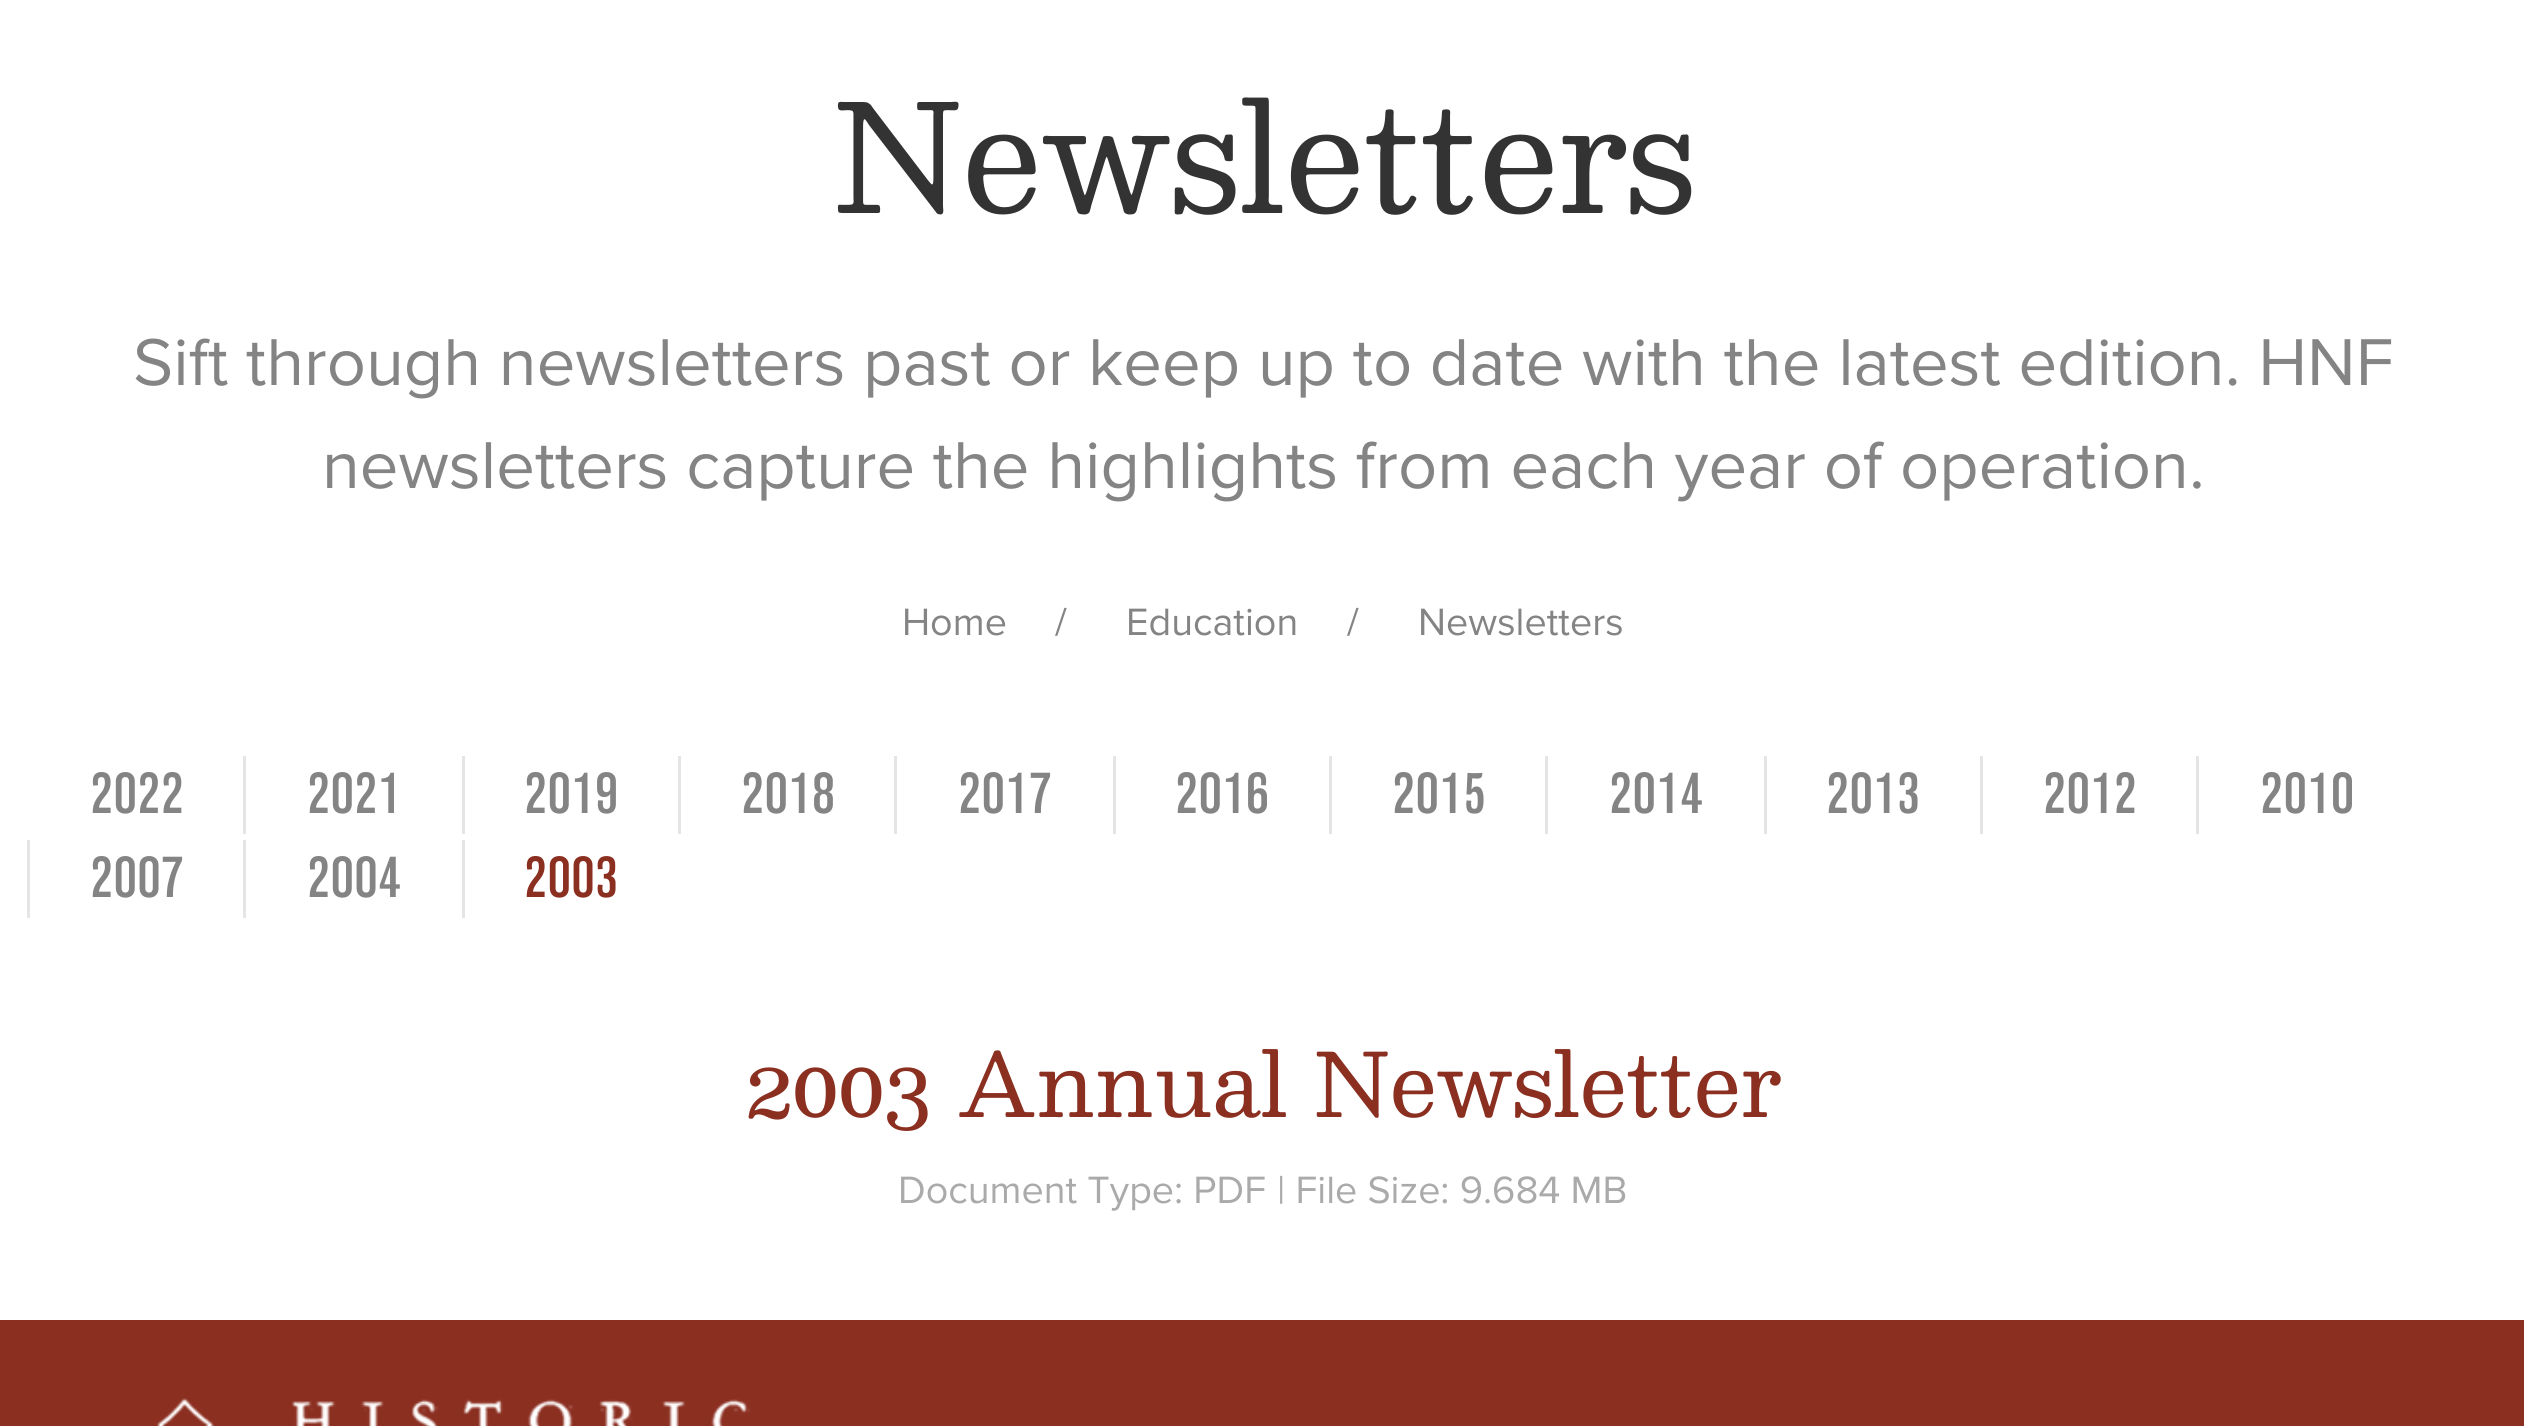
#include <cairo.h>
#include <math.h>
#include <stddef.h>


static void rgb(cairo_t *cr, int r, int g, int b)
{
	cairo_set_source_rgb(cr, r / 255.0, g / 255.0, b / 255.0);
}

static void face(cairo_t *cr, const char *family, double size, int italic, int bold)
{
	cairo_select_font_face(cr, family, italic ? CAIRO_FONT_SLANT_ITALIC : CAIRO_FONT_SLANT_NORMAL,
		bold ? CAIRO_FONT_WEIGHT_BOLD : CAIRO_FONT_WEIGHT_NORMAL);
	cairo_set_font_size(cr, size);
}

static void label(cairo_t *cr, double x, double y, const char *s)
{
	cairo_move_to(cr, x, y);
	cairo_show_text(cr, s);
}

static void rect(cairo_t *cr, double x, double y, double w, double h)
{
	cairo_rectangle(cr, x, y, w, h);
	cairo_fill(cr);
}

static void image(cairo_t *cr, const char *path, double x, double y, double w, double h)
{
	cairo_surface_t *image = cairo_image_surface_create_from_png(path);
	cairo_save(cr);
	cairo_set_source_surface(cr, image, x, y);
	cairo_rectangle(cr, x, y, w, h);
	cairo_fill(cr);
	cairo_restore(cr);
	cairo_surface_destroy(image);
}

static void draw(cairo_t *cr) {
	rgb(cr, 255, 255, 255);
	cairo_paint(cr);
	face(cr, "Besley", 148, 0, 0);
	rgb(cr, 52, 51, 52);
	label(cr, 832, 213, "Newsletters");
	face(cr, "Proxima Nova", 68.65, 0, 0);
	rgb(cr, 132, 132, 132);
	label(cr, 133, 385, "Sift through newsletters past or keep up to date with the latest edition. HNF");
	label(cr, 322, 488, "newsletters capture the highlights from each year of operation.");
	face(cr, "Proxima Nova", 39.5, 0, 0);
	label(cr, 902, 635, "Home");
	label(cr, 1055, 635, "/");
	label(cr, 1126, 635, "Education");
	label(cr, 1347, 635, "/");
	label(cr, 1418, 635, "Newsletters");
	face(cr, "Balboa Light", 53, 0, 0);
	label(cr, 90, 813, "2022");
	rgb(cr, 229, 229, 229);
	rect(cr, 243, 756, 3, 78);
	rgb(cr, 132, 132, 132);
	label(cr, 307, 813, "2021");
	rgb(cr, 229, 229, 229);
	rect(cr, 462, 756, 3, 78);
	rgb(cr, 132, 132, 132);
	label(cr, 524, 813, "2019");
	rgb(cr, 229, 229, 229);
	rect(cr, 678, 756, 3, 78);
	rgb(cr, 132, 132, 132);
	label(cr, 741, 813, "2018");
	rgb(cr, 229, 229, 229);
	rect(cr, 894, 756, 3, 78);
	rgb(cr, 132, 132, 132);
	label(cr, 958, 813, "2017");
	rgb(cr, 229, 229, 229);
	rect(cr, 1113, 756, 3, 78);
	rgb(cr, 132, 132, 132);
	label(cr, 1175, 813, "2016");
	rgb(cr, 229, 229, 229);
	rect(cr, 1329, 756, 3, 78);
	rgb(cr, 132, 132, 132);
	label(cr, 1392, 813, "2015");
	rgb(cr, 229, 229, 229);
	rect(cr, 1545, 756, 3, 78);
	rgb(cr, 132, 132, 132);
	label(cr, 1609, 813, "2014");
	rgb(cr, 229, 229, 229);
	rect(cr, 1764, 756, 3, 78);
	rgb(cr, 132, 132, 132);
	label(cr, 1826, 813, "2013");
	rgb(cr, 229, 229, 229);
	rect(cr, 1980, 756, 3, 78);
	rgb(cr, 132, 132, 132);
	label(cr, 2043, 813, "2012");
	rgb(cr, 229, 229, 229);
	rect(cr, 2196, 756, 3, 78);
	rgb(cr, 132, 132, 132);
	label(cr, 2260, 813, "2010");
	rgb(cr, 229, 229, 229);
	rect(cr, 27, 840, 3, 78);
	rgb(cr, 132, 132, 132);
	label(cr, 90, 897, "2007");
	rgb(cr, 229, 229, 229);
	rect(cr, 243, 840, 3, 78);
	rgb(cr, 132, 132, 132);
	label(cr, 307, 897, "2004");
	rgb(cr, 229, 229, 229);
	rect(cr, 462, 840, 3, 78);
	rgb(cr, 139, 47, 33);
	label(cr, 524, 897, "2003");
	face(cr, "Besley", 87.1, 0, 0);
	label(cr, 746, 1117, "2003 Annual Newsletter");
	face(cr, "Proxima Nova", 39.5, 0, 0);
	rgb(cr, 170, 170, 170);
	label(cr, 898, 1203, "Document Type: PDF");
	label(cr, 1277, 1203, "| File Size: 9.684 MB");
	rgb(cr, 139, 47, 33);
	rect(cr, 0, 1320, 2524, 106);
	image(cr, "image0.png", 156, 1398, 594, 28);
}

int main(void) {
	cairo_surface_t *surface = cairo_image_surface_create(CAIRO_FORMAT_RGB24, 2524, 1426);
	cairo_t *cr = cairo_create(surface);
	cairo_font_options_t *options = cairo_font_options_create();
	cairo_font_options_set_hint_metrics(options, CAIRO_HINT_METRICS_OFF);
	cairo_font_options_set_hint_style(options, CAIRO_HINT_STYLE_NONE);
	cairo_set_font_options(cr, options);
	cairo_set_miter_limit(cr, 4);
	draw(cr);
	cairo_surface_write_to_png(surface, "render.png");
	cairo_font_options_destroy(options);
	cairo_destroy(cr);
	cairo_surface_destroy(surface);
	return 0;
}
